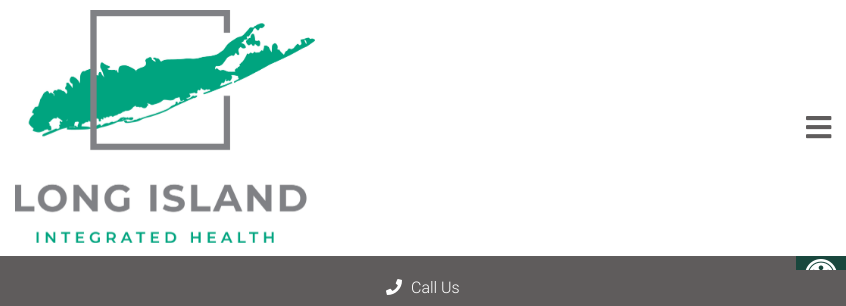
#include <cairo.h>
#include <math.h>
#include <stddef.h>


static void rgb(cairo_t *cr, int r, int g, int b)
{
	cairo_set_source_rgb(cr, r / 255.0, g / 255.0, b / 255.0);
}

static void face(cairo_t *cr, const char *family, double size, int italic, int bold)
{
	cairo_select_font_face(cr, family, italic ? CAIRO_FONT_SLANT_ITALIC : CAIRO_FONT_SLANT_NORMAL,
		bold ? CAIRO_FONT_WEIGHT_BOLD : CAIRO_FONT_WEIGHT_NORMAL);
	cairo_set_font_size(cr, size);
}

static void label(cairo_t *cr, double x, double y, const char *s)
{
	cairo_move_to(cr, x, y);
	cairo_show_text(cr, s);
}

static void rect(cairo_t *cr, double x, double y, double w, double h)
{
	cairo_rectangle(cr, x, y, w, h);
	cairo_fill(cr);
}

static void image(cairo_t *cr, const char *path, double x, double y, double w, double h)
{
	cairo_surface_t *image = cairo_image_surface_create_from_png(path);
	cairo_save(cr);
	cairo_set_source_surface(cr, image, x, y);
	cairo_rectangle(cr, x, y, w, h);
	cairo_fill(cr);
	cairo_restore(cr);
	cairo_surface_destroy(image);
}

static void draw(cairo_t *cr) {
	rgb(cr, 95, 92, 92);
	cairo_paint(cr);
	rgb(cr, 255, 255, 255);
	rect(cr, 0, 0, 846, 256);
	image(cr, "image0.png", 15, 10, 300, 233);
	image(cr, "image1.png", 806, 116, 26, 23);
	rgb(cr, 25, 71, 61);
	rect(cr, 796, 256, 50, 14);
	image(cr, "image2.png", 805, 259, 32, 11);
	image(cr, "image3.png", 386, 279, 16, 16);
	face(cr, "Roboto Light", 16, 0, 0);
	rgb(cr, 255, 255, 255);
	label(cr, 411, 293, "Call Us");
}

int main(void) {
	cairo_surface_t *surface = cairo_image_surface_create(CAIRO_FORMAT_RGB24, 846, 306);
	cairo_t *cr = cairo_create(surface);
	cairo_font_options_t *options = cairo_font_options_create();
	cairo_font_options_set_hint_metrics(options, CAIRO_HINT_METRICS_OFF);
	cairo_font_options_set_hint_style(options, CAIRO_HINT_STYLE_NONE);
	cairo_set_font_options(cr, options);
	cairo_set_miter_limit(cr, 4);
	draw(cr);
	cairo_surface_write_to_png(surface, "render.png");
	cairo_font_options_destroy(options);
	cairo_destroy(cr);
	cairo_surface_destroy(surface);
	return 0;
}
